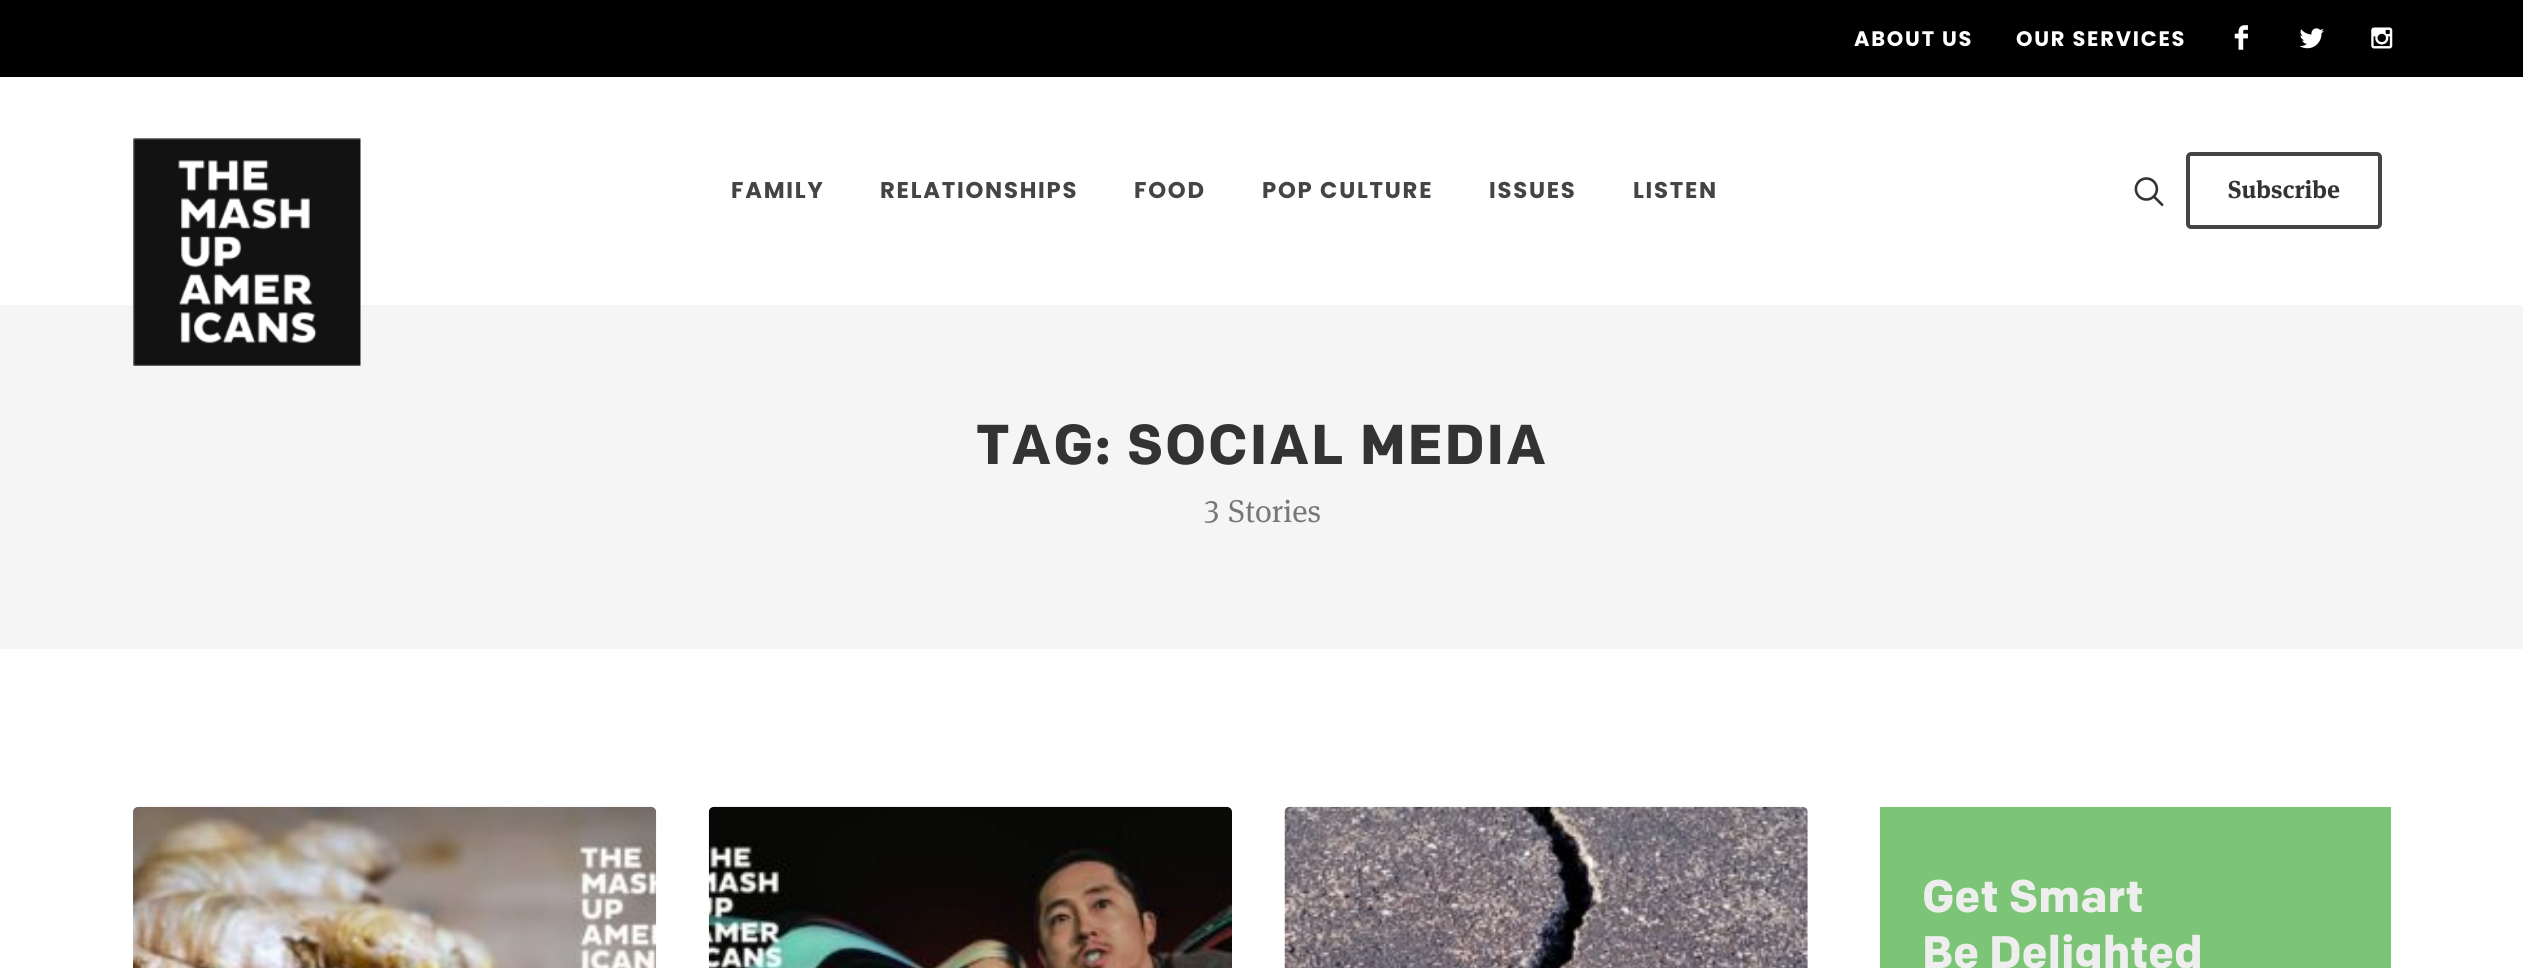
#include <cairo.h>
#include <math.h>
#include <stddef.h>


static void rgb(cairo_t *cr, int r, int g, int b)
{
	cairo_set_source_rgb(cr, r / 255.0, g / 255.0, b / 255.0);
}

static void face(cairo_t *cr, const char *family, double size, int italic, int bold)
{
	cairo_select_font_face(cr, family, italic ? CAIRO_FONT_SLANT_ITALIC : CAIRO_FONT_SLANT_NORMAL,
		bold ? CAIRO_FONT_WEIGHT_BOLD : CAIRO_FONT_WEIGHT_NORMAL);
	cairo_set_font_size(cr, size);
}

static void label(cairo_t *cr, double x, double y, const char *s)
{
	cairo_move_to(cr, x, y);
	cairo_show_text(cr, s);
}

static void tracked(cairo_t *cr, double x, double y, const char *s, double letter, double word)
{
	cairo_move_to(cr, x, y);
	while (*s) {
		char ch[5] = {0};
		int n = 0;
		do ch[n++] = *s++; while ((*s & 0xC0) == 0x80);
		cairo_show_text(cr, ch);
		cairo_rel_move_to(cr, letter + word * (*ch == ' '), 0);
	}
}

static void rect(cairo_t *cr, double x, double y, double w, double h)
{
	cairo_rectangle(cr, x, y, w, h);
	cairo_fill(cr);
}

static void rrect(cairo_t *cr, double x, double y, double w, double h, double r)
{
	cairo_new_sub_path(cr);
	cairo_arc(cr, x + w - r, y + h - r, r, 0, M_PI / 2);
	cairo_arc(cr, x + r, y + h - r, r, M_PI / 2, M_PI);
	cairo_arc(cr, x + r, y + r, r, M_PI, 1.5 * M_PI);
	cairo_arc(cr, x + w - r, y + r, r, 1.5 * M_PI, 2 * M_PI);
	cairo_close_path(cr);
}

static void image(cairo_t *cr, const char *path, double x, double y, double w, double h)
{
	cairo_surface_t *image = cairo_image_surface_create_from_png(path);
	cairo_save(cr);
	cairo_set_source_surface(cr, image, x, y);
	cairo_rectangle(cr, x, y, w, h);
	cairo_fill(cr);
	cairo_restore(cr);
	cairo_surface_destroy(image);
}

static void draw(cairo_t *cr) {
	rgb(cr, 255, 255, 255);
	cairo_paint(cr);
	rgb(cr, 0, 0, 0);
	rect(cr, 0, 0, 2523, 77);
	face(cr, "Poppins", 21, 0, 1);
	rgb(cr, 255, 255, 255);
	tracked(cr, 1854, 46, "ABOUT US", 1.75, 0);
	tracked(cr, 2016, 46, "OUR SERVICES", 1.75, 0);
	image(cr, "image0.png", 2234, 25, 14, 25);
	image(cr, "image1.png", 2299, 28, 25, 21);
	image(cr, "image2.png", 2371, 27, 22, 22);
	rgb(cr, 245, 245, 245);
	rect(cr, 0, 305, 2523, 344);
	rgb(cr, 255, 255, 255);
	rect(cr, 133, 305, 228, 61);
	image(cr, "image3.png", 133, 138, 228, 228);
	face(cr, "Poppins", 22.75, 0, 1);
	rgb(cr, 68, 68, 68);
	tracked(cr, 731, 198, "FAMILY", 1.75, 0);
	tracked(cr, 880, 198, "RELATIONSHIPS", 1.75, 0);
	tracked(cr, 1134, 198, "FOOD", 1.75, 0);
	tracked(cr, 1262, 198, "POP CULTURE", 1.75, 0);
	tracked(cr, 1489, 198, "ISSUES", 1.75, 0);
	tracked(cr, 1633, 198, "LISTEN", 1.75, 0);
	image(cr, "image4.png", 2134, 177, 30, 29);
	rrect(cr, 2188, 154, 192, 73, 3);
	cairo_set_line_width(cr, 4);
	cairo_stroke(cr);
	face(cr, "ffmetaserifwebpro", 24.5, 0, 1);
	rgb(cr, 51, 51, 51);
	label(cr, 2228, 198, "Subscribe");
	face(cr, "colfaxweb", 56, 0, 1);
	tracked(cr, 976, 464, "TAG: SOCIAL MEDIA", 1.75, 0);
	face(cr, "ffmetaserifwebpro Medium", 31.5, 0, 0);
	rgb(cr, 119, 119, 119);
	label(cr, 1203, 522, "3 Stories");
	image(cr, "image5.png", 133, 806, 524, 162);
	image(cr, "image6.png", 708, 806, 524, 162);
	image(cr, "image7.png", 1284, 806, 524, 162);
	rgb(cr, 124, 197, 118);
	rect(cr, 1880, 807, 511, 161);
	face(cr, "colfaxweb", 45.5, 0, 1);
	rgb(cr, 238, 238, 238);
	label(cr, 1922, 912, "Get Smart");
	label(cr, 1922, 968, "Be Delighted");
}

int main(void) {
	cairo_surface_t *surface = cairo_image_surface_create(CAIRO_FORMAT_RGB24, 2523, 968);
	cairo_t *cr = cairo_create(surface);
	cairo_font_options_t *options = cairo_font_options_create();
	cairo_font_options_set_hint_metrics(options, CAIRO_HINT_METRICS_OFF);
	cairo_font_options_set_hint_style(options, CAIRO_HINT_STYLE_NONE);
	cairo_set_font_options(cr, options);
	cairo_set_miter_limit(cr, 4);
	draw(cr);
	cairo_surface_write_to_png(surface, "render.png");
	cairo_font_options_destroy(options);
	cairo_destroy(cr);
	cairo_surface_destroy(surface);
	return 0;
}
